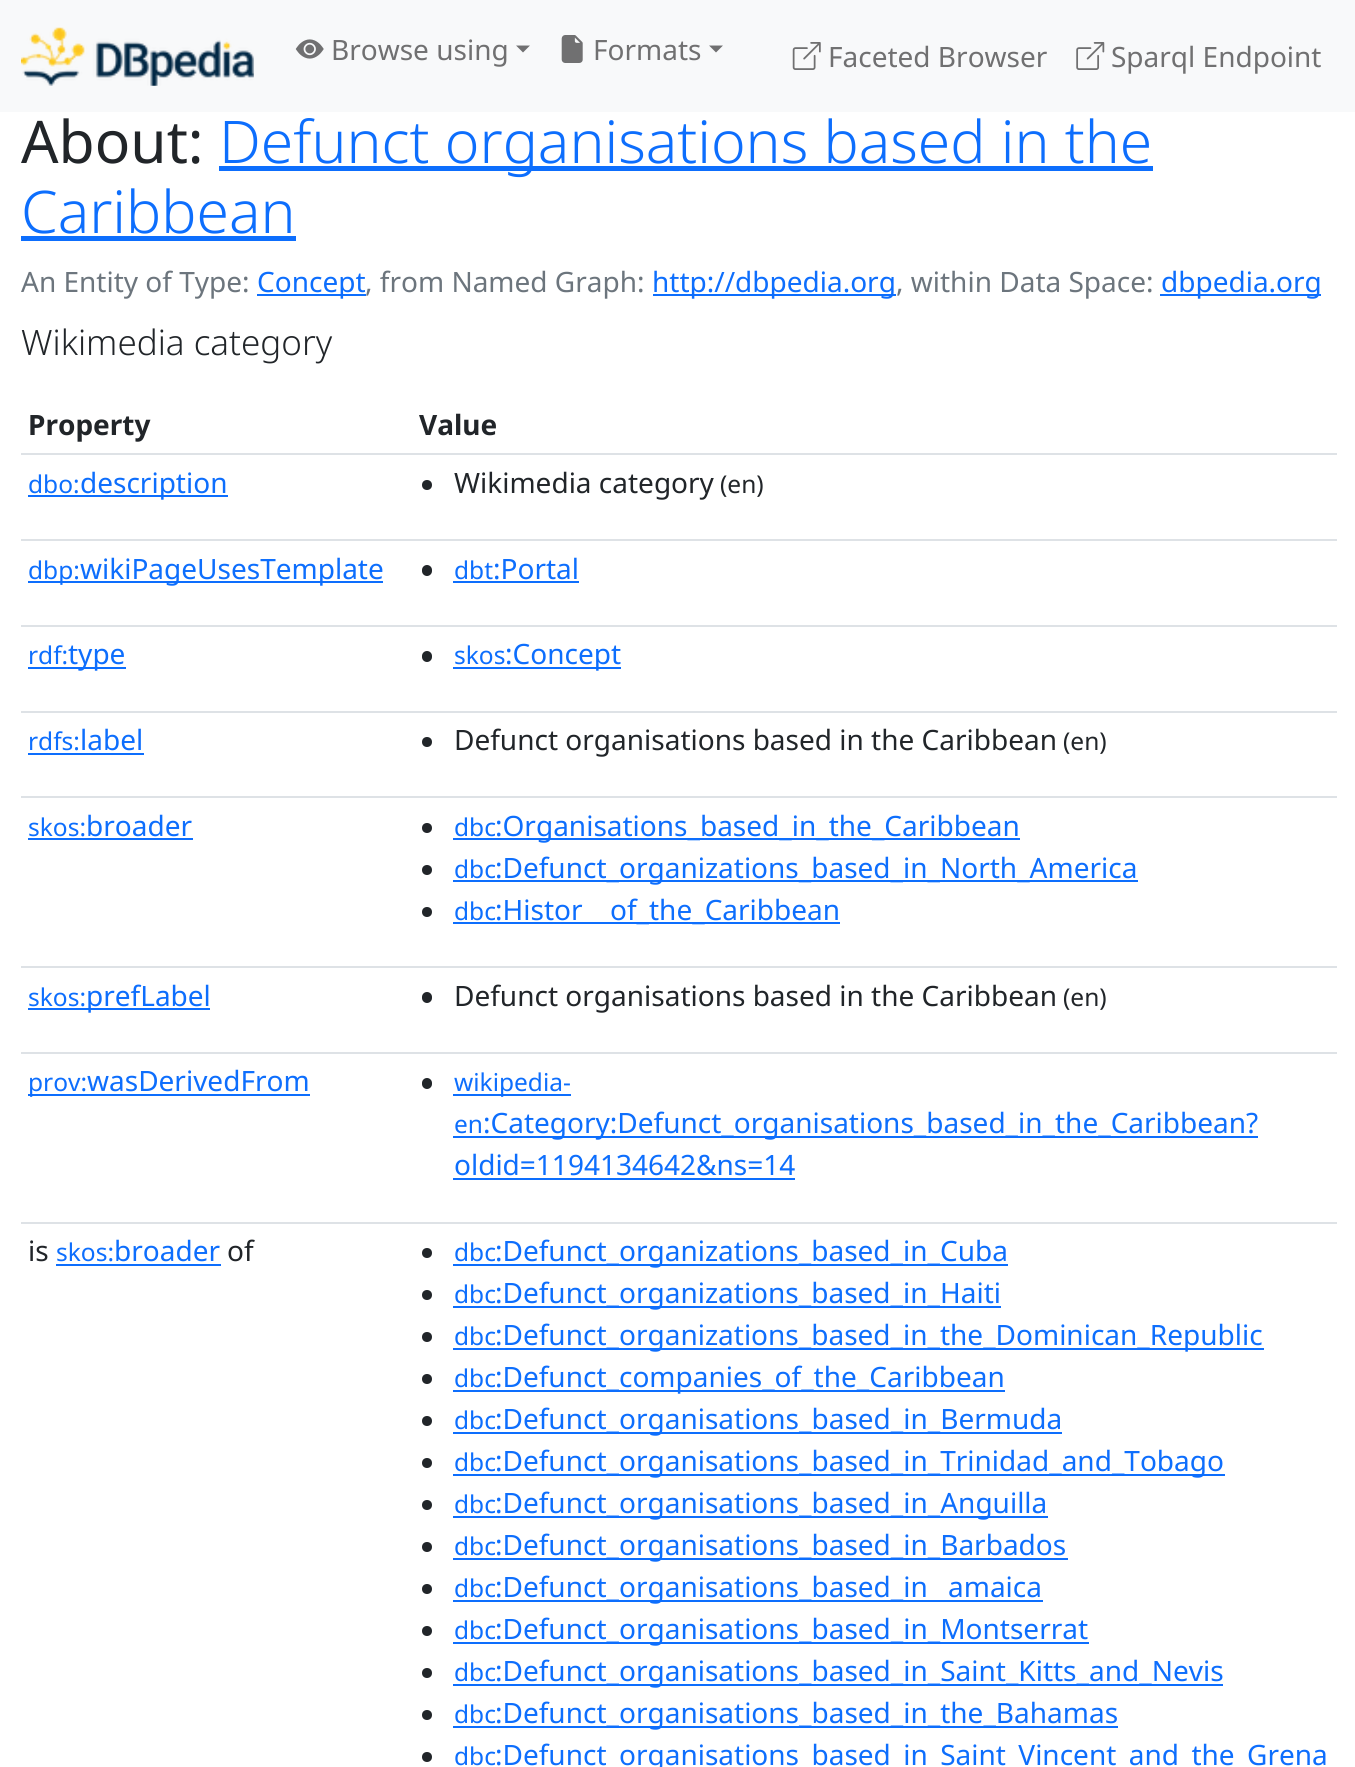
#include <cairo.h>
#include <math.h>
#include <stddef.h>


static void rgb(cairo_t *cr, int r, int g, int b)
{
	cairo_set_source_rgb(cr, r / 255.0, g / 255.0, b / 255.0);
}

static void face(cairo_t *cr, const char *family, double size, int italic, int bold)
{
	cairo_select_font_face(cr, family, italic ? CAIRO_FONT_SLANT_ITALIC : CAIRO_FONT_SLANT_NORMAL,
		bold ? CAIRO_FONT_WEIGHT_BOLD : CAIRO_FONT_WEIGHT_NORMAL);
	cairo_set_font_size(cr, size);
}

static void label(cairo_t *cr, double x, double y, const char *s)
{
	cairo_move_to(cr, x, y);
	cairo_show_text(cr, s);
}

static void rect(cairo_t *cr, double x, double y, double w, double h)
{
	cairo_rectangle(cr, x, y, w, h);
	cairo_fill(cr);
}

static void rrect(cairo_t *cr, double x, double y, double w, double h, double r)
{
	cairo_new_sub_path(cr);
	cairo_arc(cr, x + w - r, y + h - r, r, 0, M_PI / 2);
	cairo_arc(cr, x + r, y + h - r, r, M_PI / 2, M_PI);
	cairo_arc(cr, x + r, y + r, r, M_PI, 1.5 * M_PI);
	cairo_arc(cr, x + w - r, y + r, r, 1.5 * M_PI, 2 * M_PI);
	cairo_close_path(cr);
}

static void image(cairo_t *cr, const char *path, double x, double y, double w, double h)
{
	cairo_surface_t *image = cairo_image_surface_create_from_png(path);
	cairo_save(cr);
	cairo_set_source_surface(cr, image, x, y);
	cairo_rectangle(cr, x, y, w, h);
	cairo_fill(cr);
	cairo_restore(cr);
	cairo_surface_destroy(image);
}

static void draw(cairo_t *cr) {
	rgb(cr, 255, 255, 255);
	cairo_paint(cr);
	rgb(cr, 248, 249, 250);
	rect(cr, 0, 0, 1355, 112);
	image(cr, "image0.png", 21, 27, 233, 59);
	image(cr, "image1.png", 295, 39, 29, 20);
	face(cr, "Noto Sans", 28, 0, 0);
	rgb(cr, 112, 112, 113);
	label(cr, 331, 60, "Browse using");
	cairo_new_path(cr);
	cairo_move_to(cr, 516, 45.5);
	cairo_line_to(cr, 530, 45.5);
	cairo_line_to(cr, 523, 52.5);
	cairo_close_path(cr);
	cairo_fill(cr);
	image(cr, "image2.png", 561, 35, 22, 28);
	label(cr, 593, 60, "Formats");
	cairo_new_path(cr);
	cairo_move_to(cr, 709, 45.5);
	cairo_line_to(cr, 723, 45.5);
	cairo_line_to(cr, 716, 52.5);
	cairo_close_path(cr);
	cairo_fill(cr);
	image(cr, "image3.png", 792, 42, 29, 28);
	label(cr, 828, 67, "Faceted Browser");
	image(cr, "image4.png", 1076, 42, 29, 28);
	label(cr, 1111, 67, "Sparql Endpoint");
	face(cr, "Noto Sans", 58.8, 0, 0);
	rgb(cr, 33, 37, 41);
	label(cr, 21, 163, "About:");
	rgb(cr, 13, 110, 253);
	rect(cr, 219, 166, 934, 5);
	face(cr, "Noto Sans Light", 58.8, 0, 0);
	label(cr, 219, 163, "Defunct organisations based in the");
	label(cr, 21, 233, "Caribbean");
	rect(cr, 21, 236, 275, 5);
	face(cr, "Noto Sans", 28, 0, 0);
	rgb(cr, 108, 117, 125);
	label(cr, 21, 292, "An Entity of Type:");
	rgb(cr, 13, 110, 253);
	rect(cr, 257, 294, 109, 2);
	label(cr, 257, 292, "Concept");
	rgb(cr, 108, 117, 125);
	label(cr, 365, 292, ", from Named Graph:");
	rgb(cr, 13, 110, 253);
	rect(cr, 653, 294, 243, 2);
	label(cr, 652, 292, "http://dbpedia.org");
	rgb(cr, 108, 117, 125);
	label(cr, 896, 292, ", within Data Space:");
	rgb(cr, 13, 110, 253);
	rect(cr, 1160, 294, 161, 2);
	label(cr, 1161, 292, "dbpedia.org");
	face(cr, "Noto Sans Light", 35, 0, 0);
	rgb(cr, 33, 37, 41);
	label(cr, 21, 355, "Wikimedia category");
	face(cr, "Noto Sans", 28, 0, 1);
	label(cr, 28, 435, "Property");
	rgb(cr, 222, 226, 230);
	rect(cr, 21, 453, 1316, 2);
	rgb(cr, 33, 37, 41);
	label(cr, 419, 435, "Value");
	face(cr, "Noto Sans", 24.5, 0, 0);
	rgb(cr, 13, 110, 253);
	label(cr, 28, 493, "dbo:");
	rect(cr, 28, 495, 200, 2);
	face(cr, "Noto Sans", 28, 0, 0);
	label(cr, 80, 493, "description");
	rgb(cr, 222, 226, 230);
	rect(cr, 21, 539, 1316, 2);
	rgb(cr, 33, 37, 41);
	cairo_new_path(cr);
	cairo_arc(cr, 427, 485, 5, 0, 2 * M_PI);
	cairo_fill(cr);
	label(cr, 454, 493, "Wikimedia category");
	face(cr, "Noto Sans", 24.5, 0, 0);
	label(cr, 720, 493, "(en)");
	rgb(cr, 13, 110, 253);
	rect(cr, 28, 581, 355, 2);
	label(cr, 28, 579, "dbp:");
	face(cr, "Noto Sans", 28, 0, 0);
	label(cr, 80, 579, "wikiPageUsesTemplate");
	rgb(cr, 222, 226, 230);
	rect(cr, 21, 625, 1316, 2);
	rgb(cr, 33, 37, 41);
	rrect(cr, 422, 565, 10, 11, 5);
	cairo_fill(cr);
	face(cr, "Noto Sans", 24.5, 0, 0);
	rgb(cr, 13, 110, 253);
	label(cr, 454, 579, "dbt");
	rect(cr, 453, 581, 126, 2);
	face(cr, "Noto Sans", 28, 0, 0);
	label(cr, 493, 579, ":Portal");
	face(cr, "Noto Sans", 24.5, 0, 0);
	label(cr, 28, 664, "rdf:");
	rect(cr, 28, 667, 98, 2);
	face(cr, "Noto Sans", 28, 0, 0);
	label(cr, 68, 664, "type");
	rgb(cr, 222, 226, 230);
	rect(cr, 21, 711, 1316, 2);
	rgb(cr, 33, 37, 41);
	rrect(cr, 422, 651, 10, 11, 5);
	cairo_fill(cr);
	face(cr, "Noto Sans", 24.5, 0, 0);
	rgb(cr, 13, 110, 253);
	label(cr, 454, 664, "skos");
	rect(cr, 453, 667, 168, 2);
	face(cr, "Noto Sans", 28, 0, 0);
	label(cr, 505, 664, ":Concept");
	face(cr, "Noto Sans", 24.5, 0, 0);
	label(cr, 28, 750, "rdfs:");
	rect(cr, 28, 753, 116, 2);
	face(cr, "Noto Sans", 28, 0, 0);
	label(cr, 80, 750, "label");
	rgb(cr, 222, 226, 230);
	rect(cr, 21, 796, 1316, 2);
	rgb(cr, 33, 37, 41);
	cairo_new_path(cr);
	cairo_arc(cr, 427, 742, 5, 0, 2 * M_PI);
	cairo_fill(cr);
	label(cr, 454, 750, "Defunct organisations based in the Caribbean");
	face(cr, "Noto Sans", 24.5, 0, 0);
	label(cr, 1063, 750, "(en)");
	rgb(cr, 13, 110, 253);
	label(cr, 28, 836, "skos:");
	rect(cr, 28, 838, 165, 2);
	face(cr, "Noto Sans", 28, 0, 0);
	label(cr, 86, 836, "broader");
	rgb(cr, 222, 226, 230);
	rect(cr, 21, 966, 1316, 2);
	rgb(cr, 33, 37, 41);
	cairo_new_path(cr);
	cairo_arc(cr, 427, 828, 5, 0, 2 * M_PI);
	cairo_fill(cr);
	face(cr, "Noto Sans", 24.5, 0, 0);
	rgb(cr, 13, 110, 253);
	label(cr, 454, 836, "dbc");
	rect(cr, 453, 838, 567, 2);
	face(cr, "Noto Sans", 28, 0, 0);
	label(cr, 495, 836, ":Organisations_based_in_the_Caribbean");
	rgb(cr, 33, 37, 41);
	cairo_new_path(cr);
	cairo_arc(cr, 427, 870, 5, 0, 2 * M_PI);
	cairo_fill(cr);
	face(cr, "Noto Sans", 24.5, 0, 0);
	rgb(cr, 13, 110, 253);
	label(cr, 454, 878, "dbc");
	rect(cr, 453, 880, 685, 2);
	face(cr, "Noto Sans", 28, 0, 0);
	label(cr, 495, 878, ":Defunct_organizations_based_in_North_America");
	rgb(cr, 33, 37, 41);
	cairo_new_path(cr);
	cairo_arc(cr, 427, 912, 5, 0, 2 * M_PI);
	cairo_fill(cr);
	face(cr, "Noto Sans", 24.5, 0, 0);
	rgb(cr, 13, 110, 253);
	label(cr, 454, 920, "dbc");
	face(cr, "Noto Sans", 28, 0, 0);
	label(cr, 495, 920, ":Histor");
	rect(cr, 453, 922, 387, 2);
	label(cr, 610, 920, "of_the_Caribbean");
	face(cr, "Noto Sans", 24.5, 0, 0);
	label(cr, 28, 1006, "skos:");
	rect(cr, 28, 1008, 182, 2);
	face(cr, "Noto Sans", 28, 0, 0);
	label(cr, 86, 1006, "prefLabel");
	rgb(cr, 222, 226, 230);
	rect(cr, 21, 1052, 1316, 2);
	rgb(cr, 33, 37, 41);
	rrect(cr, 422, 992, 10, 11, 5);
	cairo_fill(cr);
	label(cr, 454, 1006, "Defunct organisations based in the Caribbean");
	face(cr, "Noto Sans", 24.5, 0, 0);
	label(cr, 1063, 1006, "(en)");
	rgb(cr, 13, 110, 253);
	rect(cr, 28, 1094, 282, 2);
	label(cr, 28, 1091, "prov:");
	face(cr, "Noto Sans", 28, 0, 0);
	label(cr, 87, 1091, "wasDerivedFrom");
	rgb(cr, 222, 226, 230);
	rect(cr, 21, 1222, 1316, 2);
	rgb(cr, 33, 37, 41);
	rrect(cr, 422, 1078, 10, 11, 5);
	cairo_fill(cr);
	rgb(cr, 13, 110, 253);
	rect(cr, 453, 1094, 118, 2);
	face(cr, "Noto Sans", 24.5, 0, 0);
	label(cr, 454, 1091, "wikipedia-");
	label(cr, 454, 1133, "en");
	rect(cr, 453, 1136, 805, 2);
	face(cr, "Noto Sans", 28, 0, 0);
	label(cr, 483, 1133, ":Category:Defunct_organisations_based_in_the_Caribbean?");
	label(cr, 454, 1175, "oldid=1194134642&ns=14");
	rect(cr, 453, 1178, 342, 2);
	rgb(cr, 33, 37, 41);
	label(cr, 28, 1261, "is");
	face(cr, "Noto Sans", 24.5, 0, 0);
	rgb(cr, 13, 110, 253);
	label(cr, 56, 1261, "skos:");
	rect(cr, 56, 1264, 165, 2);
	face(cr, "Noto Sans", 28, 0, 0);
	label(cr, 114, 1261, "broader");
	rgb(cr, 33, 37, 41);
	label(cr, 227, 1261, "of");
	cairo_new_path(cr);
	cairo_arc(cr, 427, 1253, 5, 0, 2 * M_PI);
	cairo_fill(cr);
	face(cr, "Noto Sans", 24.5, 0, 0);
	rgb(cr, 13, 110, 253);
	label(cr, 454, 1261, "dbc");
	rect(cr, 453, 1264, 555, 2);
	face(cr, "Noto Sans", 28, 0, 0);
	label(cr, 495, 1261, ":Defunct_organizations_based_in_Cuba");
	rgb(cr, 33, 37, 41);
	cairo_new_path(cr);
	cairo_arc(cr, 427, 1295, 5, 0, 2 * M_PI);
	cairo_fill(cr);
	face(cr, "Noto Sans", 24.5, 0, 0);
	rgb(cr, 13, 110, 253);
	label(cr, 454, 1303, "dbc");
	rect(cr, 453, 1306, 548, 2);
	face(cr, "Noto Sans", 28, 0, 0);
	label(cr, 495, 1303, ":Defunct_organizations_based_in_Haiti");
	rgb(cr, 33, 37, 41);
	cairo_new_path(cr);
	cairo_arc(cr, 427, 1337, 5, 0, 2 * M_PI);
	cairo_fill(cr);
	face(cr, "Noto Sans", 24.5, 0, 0);
	rgb(cr, 13, 110, 253);
	label(cr, 454, 1345, "dbc");
	rect(cr, 453, 1348, 811, 2);
	face(cr, "Noto Sans", 28, 0, 0);
	label(cr, 495, 1345, ":Defunct_organizations_based_in_the_Dominican_Republic");
	rgb(cr, 33, 37, 41);
	cairo_new_path(cr);
	cairo_arc(cr, 427, 1379, 5, 0, 2 * M_PI);
	cairo_fill(cr);
	face(cr, "Noto Sans", 24.5, 0, 0);
	rgb(cr, 13, 110, 253);
	label(cr, 454, 1387, "dbc");
	rect(cr, 453, 1390, 552, 2);
	face(cr, "Noto Sans", 28, 0, 0);
	label(cr, 495, 1387, ":Defunct_companies_of_the_Caribbean");
	rgb(cr, 33, 37, 41);
	cairo_new_path(cr);
	cairo_arc(cr, 427, 1421, 5, 0, 2 * M_PI);
	cairo_fill(cr);
	face(cr, "Noto Sans", 24.5, 0, 0);
	rgb(cr, 13, 110, 253);
	label(cr, 454, 1429, "dbc");
	rect(cr, 453, 1432, 609, 2);
	face(cr, "Noto Sans", 28, 0, 0);
	label(cr, 495, 1429, ":Defunct_organisations_based_in_Bermuda");
	rgb(cr, 33, 37, 41);
	cairo_new_path(cr);
	cairo_arc(cr, 427, 1463, 5, 0, 2 * M_PI);
	cairo_fill(cr);
	face(cr, "Noto Sans", 24.5, 0, 0);
	rgb(cr, 13, 110, 253);
	label(cr, 454, 1471, "dbc");
	rect(cr, 453, 1474, 772, 2);
	face(cr, "Noto Sans", 28, 0, 0);
	label(cr, 495, 1471, ":Defunct_organisations_based_in_Trinidad_and_Tobago");
	rgb(cr, 33, 37, 41);
	cairo_new_path(cr);
	cairo_arc(cr, 427, 1505, 5, 0, 2 * M_PI);
	cairo_fill(cr);
	face(cr, "Noto Sans", 24.5, 0, 0);
	rgb(cr, 13, 110, 253);
	label(cr, 454, 1513, "dbc");
	rect(cr, 453, 1516, 595, 2);
	face(cr, "Noto Sans", 28, 0, 0);
	label(cr, 495, 1513, ":Defunct_organisations_based_in_Anguilla");
	rgb(cr, 33, 37, 41);
	cairo_new_path(cr);
	cairo_arc(cr, 427, 1547, 5, 0, 2 * M_PI);
	cairo_fill(cr);
	face(cr, "Noto Sans", 24.5, 0, 0);
	rgb(cr, 13, 110, 253);
	label(cr, 454, 1555, "dbc");
	rect(cr, 453, 1558, 615, 2);
	face(cr, "Noto Sans", 28, 0, 0);
	label(cr, 495, 1555, ":Defunct_organisations_based_in_Barbados");
	rgb(cr, 33, 37, 41);
	cairo_new_path(cr);
	cairo_arc(cr, 427, 1589, 5, 0, 2 * M_PI);
	cairo_fill(cr);
	face(cr, "Noto Sans", 24.5, 0, 0);
	rgb(cr, 13, 110, 253);
	label(cr, 454, 1597, "dbc");
	rect(cr, 453, 1600, 590, 2);
	face(cr, "Noto Sans", 28, 0, 0);
	label(cr, 495, 1597, ":Defunct_organisations_based_in");
	label(cr, 948, 1597, "amaica");
	rgb(cr, 33, 37, 41);
	cairo_new_path(cr);
	cairo_arc(cr, 427, 1631, 5, 0, 2 * M_PI);
	cairo_fill(cr);
	face(cr, "Noto Sans", 24.5, 0, 0);
	rgb(cr, 13, 110, 253);
	label(cr, 454, 1639, "dbc");
	rect(cr, 453, 1642, 636, 2);
	face(cr, "Noto Sans", 28, 0, 0);
	label(cr, 495, 1639, ":Defunct_organisations_based_in_Montserrat");
	rgb(cr, 33, 37, 41);
	cairo_new_path(cr);
	cairo_arc(cr, 427, 1673, 5, 0, 2 * M_PI);
	cairo_fill(cr);
	face(cr, "Noto Sans", 24.5, 0, 0);
	rgb(cr, 13, 110, 253);
	label(cr, 454, 1681, "dbc");
	rect(cr, 453, 1684, 770, 2);
	face(cr, "Noto Sans", 28, 0, 0);
	label(cr, 495, 1681, ":Defunct_organisations_based_in_Saint_Kitts_and_Nevis");
	rgb(cr, 33, 37, 41);
	cairo_new_path(cr);
	cairo_arc(cr, 427, 1715, 5, 0, 2 * M_PI);
	cairo_fill(cr);
	face(cr, "Noto Sans", 24.5, 0, 0);
	rgb(cr, 13, 110, 253);
	label(cr, 454, 1723, "dbc");
	rect(cr, 453, 1726, 665, 2);
	face(cr, "Noto Sans", 28, 0, 0);
	label(cr, 495, 1723, ":Defunct_organisations_based_in_the_Bahamas");
	rgb(cr, 33, 37, 41);
	cairo_new_path(cr);
	cairo_arc(cr, 427, 1757, 5, 0, 2 * M_PI);
	cairo_fill(cr);
	face(cr, "Noto Sans", 24.5, 0, 0);
	rgb(cr, 13, 110, 253);
	label(cr, 454, 1765, "dbc");
	face(cr, "Noto Sans", 28, 0, 0);
	label(cr, 495, 1765, ":Defunct_organisations_based_in_Saint_Vincent_and_the_Grena");
}

int main(void) {
	cairo_surface_t *surface = cairo_image_surface_create(CAIRO_FORMAT_RGB24, 1355, 1767);
	cairo_t *cr = cairo_create(surface);
	cairo_font_options_t *options = cairo_font_options_create();
	cairo_font_options_set_hint_metrics(options, CAIRO_HINT_METRICS_OFF);
	cairo_font_options_set_hint_style(options, CAIRO_HINT_STYLE_NONE);
	cairo_set_font_options(cr, options);
	cairo_set_miter_limit(cr, 4);
	draw(cr);
	cairo_surface_write_to_png(surface, "render.png");
	cairo_font_options_destroy(options);
	cairo_destroy(cr);
	cairo_surface_destroy(surface);
	return 0;
}
